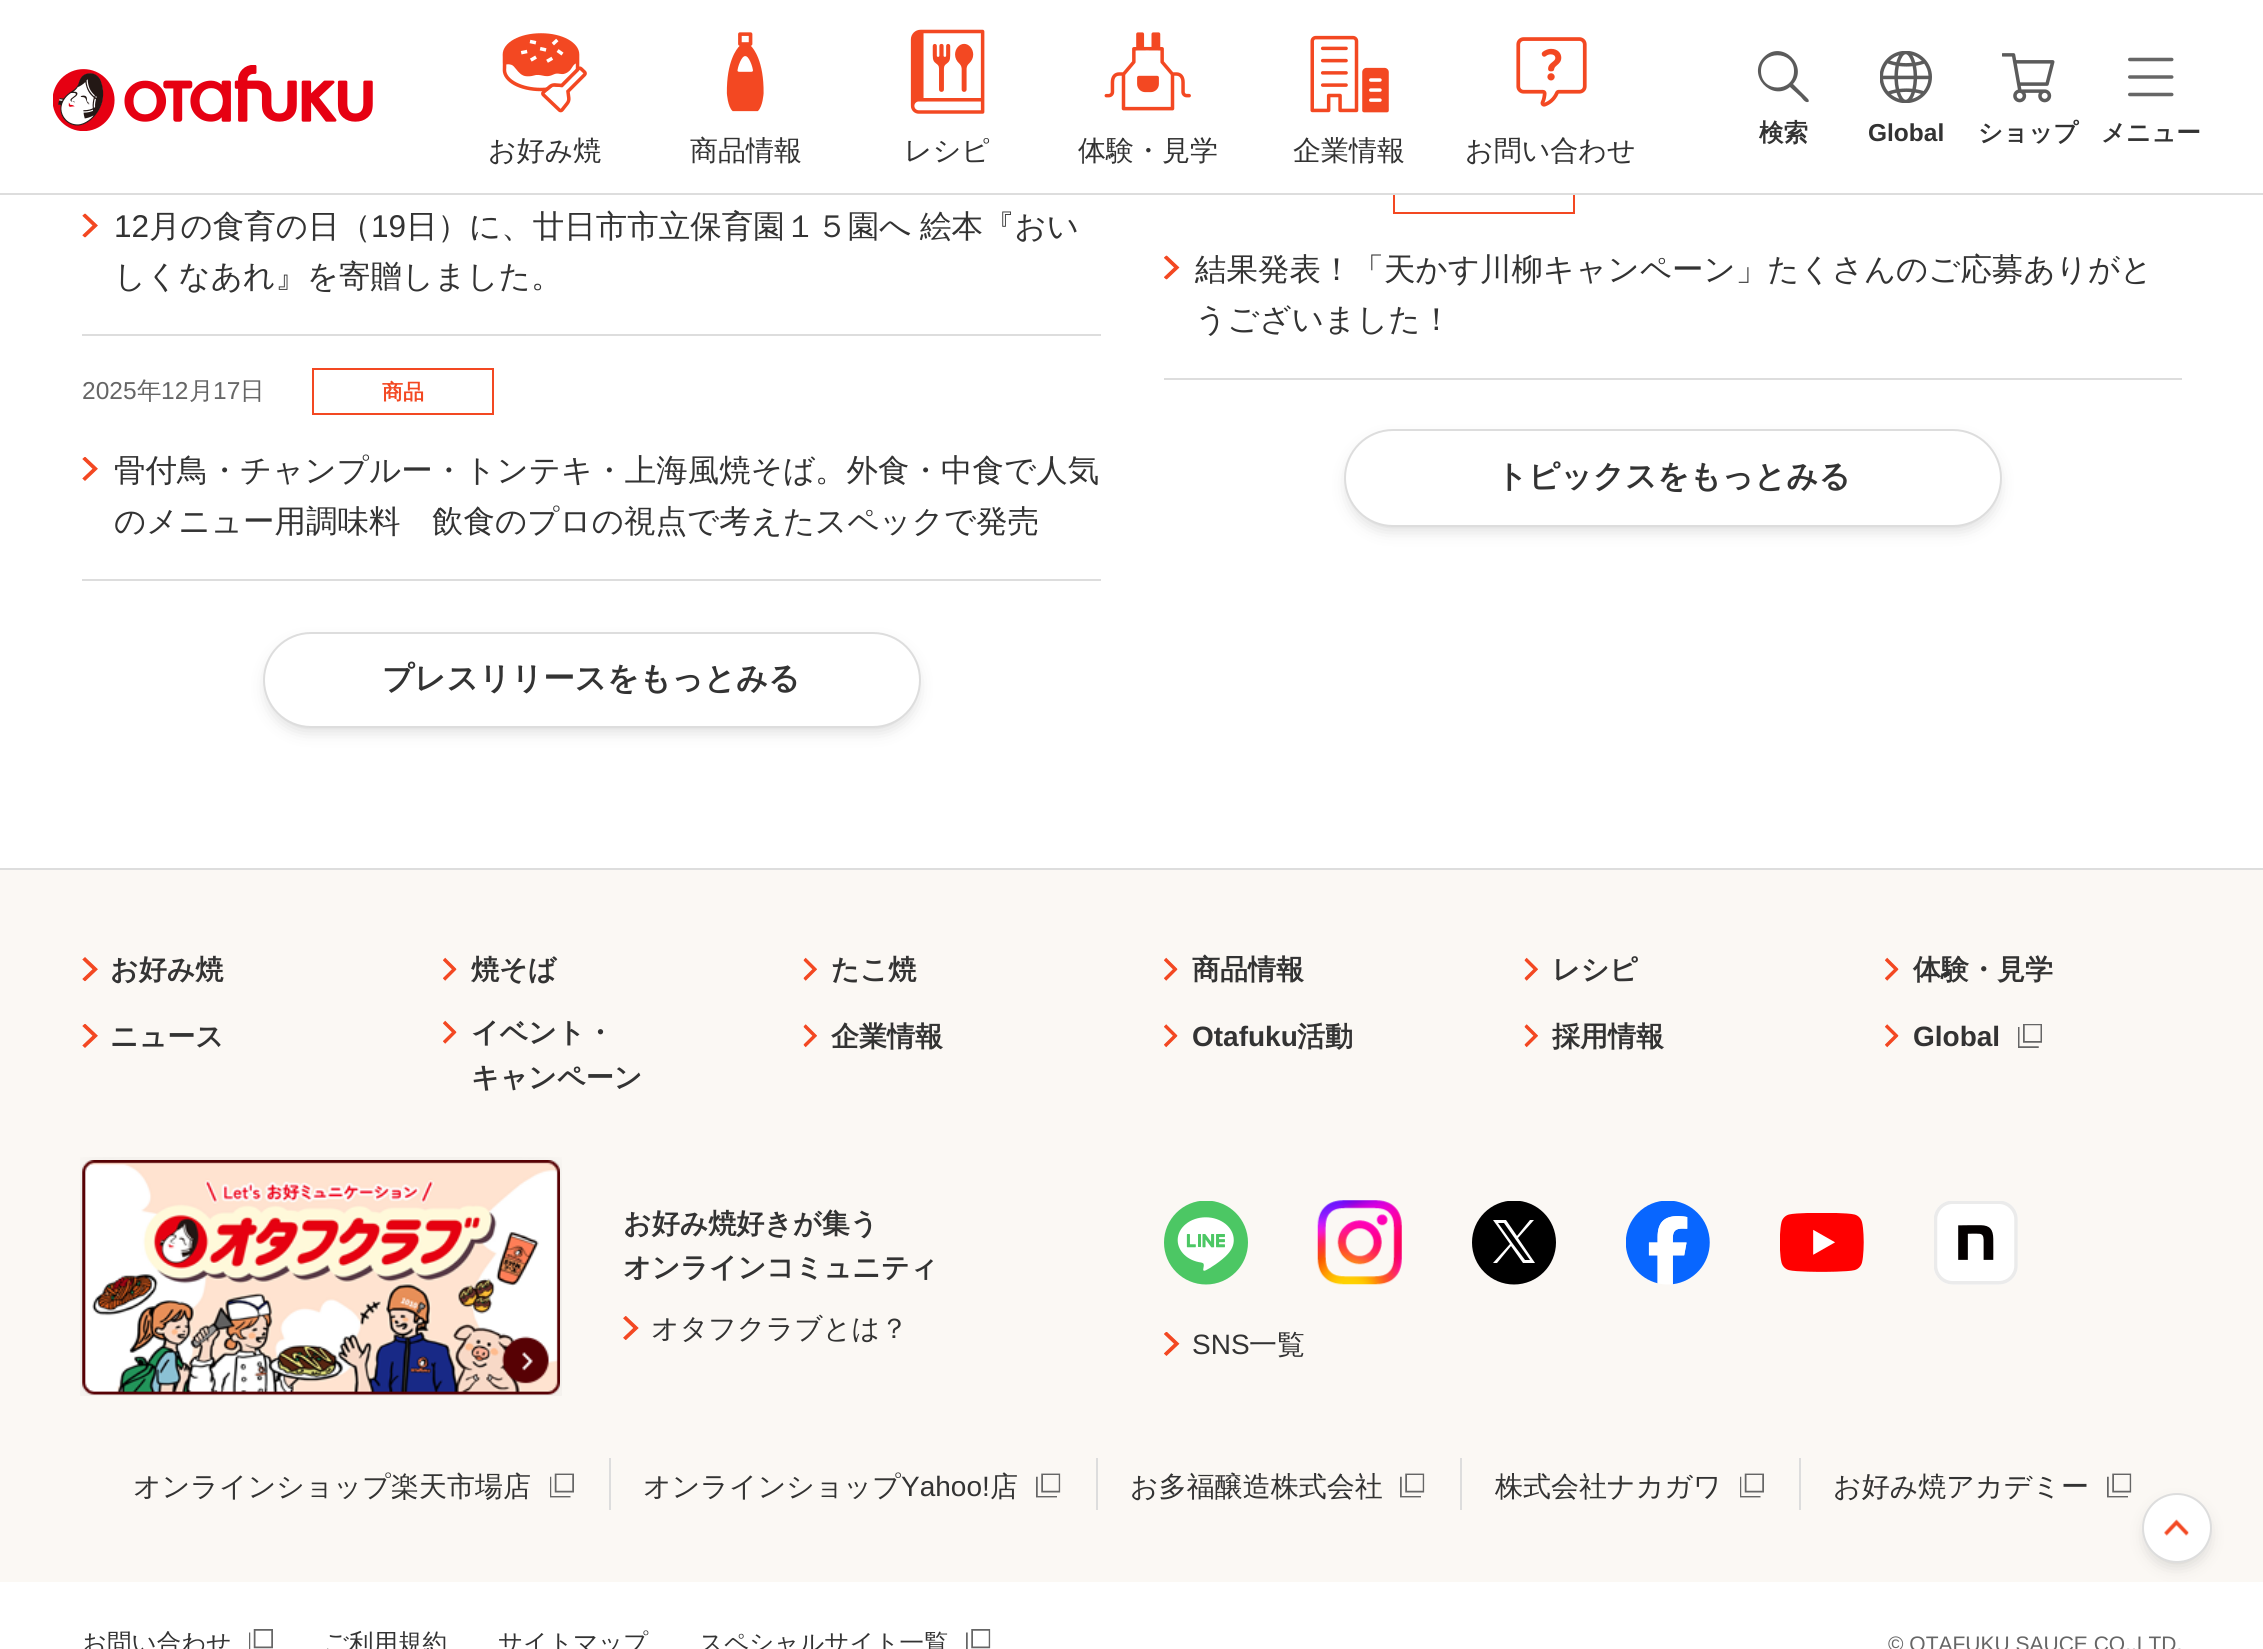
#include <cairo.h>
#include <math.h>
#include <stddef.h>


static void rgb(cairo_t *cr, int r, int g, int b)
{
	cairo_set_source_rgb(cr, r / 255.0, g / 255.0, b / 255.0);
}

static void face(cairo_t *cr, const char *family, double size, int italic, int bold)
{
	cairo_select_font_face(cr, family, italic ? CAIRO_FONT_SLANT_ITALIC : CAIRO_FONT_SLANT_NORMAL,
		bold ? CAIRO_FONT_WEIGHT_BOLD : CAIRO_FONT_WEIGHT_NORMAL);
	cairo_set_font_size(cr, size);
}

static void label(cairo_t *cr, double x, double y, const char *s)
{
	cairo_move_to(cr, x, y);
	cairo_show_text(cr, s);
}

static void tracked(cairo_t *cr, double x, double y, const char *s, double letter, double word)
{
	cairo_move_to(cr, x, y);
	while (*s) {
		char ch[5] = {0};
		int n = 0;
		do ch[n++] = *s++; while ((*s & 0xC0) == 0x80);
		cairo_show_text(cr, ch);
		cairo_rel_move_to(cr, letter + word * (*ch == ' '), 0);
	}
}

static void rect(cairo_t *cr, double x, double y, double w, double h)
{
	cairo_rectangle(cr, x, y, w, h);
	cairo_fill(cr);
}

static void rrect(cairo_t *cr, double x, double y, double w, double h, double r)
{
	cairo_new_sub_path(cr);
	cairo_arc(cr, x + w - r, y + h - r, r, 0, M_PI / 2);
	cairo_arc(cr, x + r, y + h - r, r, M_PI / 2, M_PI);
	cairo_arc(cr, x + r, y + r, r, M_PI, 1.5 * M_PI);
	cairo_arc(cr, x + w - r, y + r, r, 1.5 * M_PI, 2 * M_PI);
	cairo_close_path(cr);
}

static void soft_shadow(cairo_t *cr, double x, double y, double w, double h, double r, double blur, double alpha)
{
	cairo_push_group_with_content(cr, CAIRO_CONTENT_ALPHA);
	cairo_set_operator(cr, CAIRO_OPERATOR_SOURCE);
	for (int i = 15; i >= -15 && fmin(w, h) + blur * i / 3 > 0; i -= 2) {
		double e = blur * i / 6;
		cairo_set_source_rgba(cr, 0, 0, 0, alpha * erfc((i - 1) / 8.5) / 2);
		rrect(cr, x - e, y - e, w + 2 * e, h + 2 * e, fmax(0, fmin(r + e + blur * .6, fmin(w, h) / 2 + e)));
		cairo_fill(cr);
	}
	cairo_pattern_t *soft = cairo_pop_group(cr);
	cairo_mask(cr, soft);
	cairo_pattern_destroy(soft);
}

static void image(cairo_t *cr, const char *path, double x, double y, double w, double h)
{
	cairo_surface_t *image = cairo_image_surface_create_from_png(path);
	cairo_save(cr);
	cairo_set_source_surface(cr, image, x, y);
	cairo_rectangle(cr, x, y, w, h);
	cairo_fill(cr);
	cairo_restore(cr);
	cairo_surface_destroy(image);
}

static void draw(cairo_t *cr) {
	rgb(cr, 255, 255, 255);
	cairo_paint(cr);
	cairo_rectangle(cr, 1394, 167, 180, 46);
	rgb(cr, 243, 72, 34);
	cairo_stroke(cr);
	rgb(cr, 255, 255, 255);
	rect(cr, 1393, 166, 182, 27);
	rgb(cr, 221, 221, 221);
	rect(cr, 0, 193, 2263, 2);
	image(cr, "image0.png", 53, 65, 320, 66);
	rgb(cr, 91, 91, 91);
	cairo_new_path(cr);
	cairo_move_to(cr, 1808, 99);
	cairo_line_to(cr, 1793, 84);
	cairo_curve_to(cr, 1809, 66, 1782, 39, 1764, 57);
	cairo_curve_to(cr, 1746, 75, 1772, 102, 1790, 87);
	cairo_line_to(cr, 1801, 97);
	cairo_curve_to(cr, 1802, 98, 1805, 103, 1808, 102);
	cairo_curve_to(cr, 1809, 102, 1809, 100, 1808, 99);
	cairo_close_path(cr);
	cairo_move_to(cr, 1761, 71);
	cairo_curve_to(cr, 1761, 50, 1794, 50, 1794, 71);
	cairo_curve_to(cr, 1794, 93, 1761, 93, 1761, 71);
	cairo_close_path(cr);
	cairo_fill(cr);
	face(cr, "WenQuanYi Zen Hei", 24.5, 0, 1);
	rgb(cr, 51, 51, 51);
	label(cr, 1759, 141, "検索");
	image(cr, "image1.png", 1880, 51, 52, 52);
	face(cr, "Liberation Sans", 24.5, 0, 1);
	label(cr, 1868, 141, "Global");
	image(cr, "image2.png", 2002, 53, 53, 50);
	face(cr, "WenQuanYi Zen Hei", 24.5, 0, 1);
	label(cr, 1978, 141, "ショップ");
	image(cr, "image3.png", 2128, 57, 46, 40);
	label(cr, 2101, 141, "メニュー");
	image(cr, "image4.png", 502, 33, 85, 80);
	face(cr, "WenQuanYi Zen Hei Medium", 28, 0, 0);
	label(cr, 488, 160, "お好み焼");
	image(cr, "image5.png", 726, 32, 38, 80);
	label(cr, 690, 160, "商品情報");
	image(cr, "image6.png", 910, 29, 75, 85);
	label(cr, 904, 160, "レシピ");
	image(cr, "image7.png", 1104, 32, 87, 79);
	label(cr, 1078, 160, "体験・見学");
	image(cr, "image8.png", 1310, 35, 79, 78);
	label(cr, 1293, 160, "企業情報");
	image(cr, "image9.png", 1516, 37, 71, 70);
	label(cr, 1465, 160, "お問い合わせ");
	rgb(cr, 221, 221, 221);
	rect(cr, 82, 334, 1019, 2);
	image(cr, "image10.png", 82, 213, 16, 25);
	face(cr, "Liberation Sans", 31.5, 0, 0);
	rgb(cr, 51, 51, 51);
	label(cr, 114, 237, "12");
	face(cr, "WenQuanYi Zen Hei Medium", 31.5, 0, 0);
	label(cr, 149, 237, "月の食育の日（");
	face(cr, "Liberation Sans", 31.5, 0, 0);
	label(cr, 371, 237, "19");
	face(cr, "WenQuanYi Zen Hei Medium", 31.5, 0, 0);
	tracked(cr, 406, 237, "日）に、廿日市市立保育園１５園へ 絵本『おい", 0, -1);
	label(cr, 114, 287, "しくなあれ』を寄贈しました。");
	rgb(cr, 221, 221, 221);
	rect(cr, 82, 579, 1019, 2);
	face(cr, "Liberation Sans", 24.5, 0, 0);
	rgb(cr, 102, 102, 102);
	label(cr, 82, 399, "2025");
	face(cr, "WenQuanYi Zen Hei Medium", 24.5, 0, 0);
	label(cr, 137, 399, "年");
	face(cr, "Liberation Sans", 24.5, 0, 0);
	label(cr, 161, 399, "12");
	face(cr, "WenQuanYi Zen Hei Medium", 24.5, 0, 0);
	label(cr, 189, 399, "月");
	face(cr, "Liberation Sans", 24.5, 0, 0);
	label(cr, 213, 399, "17");
	face(cr, "WenQuanYi Zen Hei Medium", 24.5, 0, 0);
	label(cr, 240, 399, "日");
	cairo_rectangle(cr, 313, 369, 180, 45);
	rgb(cr, 243, 72, 34);
	cairo_stroke(cr);
	face(cr, "WenQuanYi Zen Hei", 21, 0, 1);
	label(cr, 382, 399, "商品");
	image(cr, "image11.png", 82, 457, 16, 24);
	face(cr, "WenQuanYi Zen Hei Medium", 31.5, 0, 0);
	rgb(cr, 51, 51, 51);
	label(cr, 114, 481, "骨付鳥・チャンプルー・トンテキ・上海風焼そば。外食・中食で人気");
	label(cr, 114, 532, "のメニュー用調味料　飲食のプロの視点で考えたスペックで発売");
	rgb(cr, 51, 51, 51);
	soft_shadow(cr, 270, 646, 644, 82, 41, 9, 0.25);
	rgb(cr, 255, 255, 255);
	rrect(cr, 264, 633, 656, 94, 47);
	cairo_fill_preserve(cr);
	rgb(cr, 221, 221, 221);
	cairo_stroke(cr);
	face(cr, "WenQuanYi Zen Hei", 31.5, 0, 1);
	rgb(cr, 51, 51, 51);
	label(cr, 382, 689, "プレスリリースをもっとみる");
	rgb(cr, 221, 221, 221);
	rect(cr, 1164, 378, 1018, 2);
	image(cr, "image12.png", 1164, 255, 16, 25);
	face(cr, "WenQuanYi Zen Hei Medium", 31.5, 0, 0);
	rgb(cr, 51, 51, 51);
	label(cr, 1195, 280, "結果発表！「天かす川柳キャンペーン」たくさんのご応募ありがと");
	label(cr, 1195, 330, "うございました！");
	rgb(cr, 51, 51, 51);
	soft_shadow(cr, 1351, 443, 644, 84, 42, 9, 0.25);
	rgb(cr, 255, 255, 255);
	rrect(cr, 1345, 430, 656, 96, 48);
	cairo_fill_preserve(cr);
	rgb(cr, 221, 221, 221);
	cairo_stroke(cr);
	face(cr, "WenQuanYi Zen Hei", 31.5, 0, 1);
	rgb(cr, 51, 51, 51);
	label(cr, 1496, 487, "トピックスをもっとみる");
	rgb(cr, 221, 221, 221);
	rect(cr, 0, 868, 2263, 2);
	rgb(cr, 251, 248, 244);
	rect(cr, 0, 870, 2263, 712);
	image(cr, "image13.png", 82, 957, 16, 25);
	face(cr, "WenQuanYi Zen Hei", 28, 0, 1);
	rgb(cr, 51, 51, 51);
	label(cr, 110, 979, "お好み焼");
	image(cr, "image14.png", 443, 957, 14, 24);
	label(cr, 471, 979, "焼そば");
	image(cr, "image15.png", 803, 957, 14, 24);
	label(cr, 831, 979, "たこ焼");
	image(cr, "image14.png", 1164, 957, 14, 24);
	label(cr, 1192, 979, "商品情報");
	image(cr, "image16.png", 1524, 957, 14, 24);
	label(cr, 1552, 979, "レシピ");
	image(cr, "image14.png", 1885, 957, 14, 24);
	label(cr, 1913, 979, "体験・見学");
	image(cr, "image17.png", 82, 1024, 16, 24);
	label(cr, 110, 1046, "ニュース");
	image(cr, "image14.png", 443, 1020, 14, 24);
	label(cr, 471, 1042, "イベント・");
	label(cr, 471, 1087, "キャンペーン");
	image(cr, "image18.png", 803, 1024, 14, 24);
	label(cr, 831, 1046, "企業情報");
	image(cr, "image19.png", 1164, 1024, 14, 24);
	face(cr, "Liberation Sans", 28, 0, 1);
	label(cr, 1192, 1046, "Otafuku");
	face(cr, "WenQuanYi Zen Hei", 28, 0, 1);
	label(cr, 1297, 1046, "活動");
	image(cr, "image20.png", 1524, 1024, 14, 24);
	label(cr, 1552, 1046, "採用情報");
	image(cr, "image19.png", 1885, 1024, 14, 24);
	face(cr, "Liberation Sans", 28, 0, 1);
	label(cr, 1913, 1046, "Global");
	image(cr, "image21.png", 2018, 1024, 24, 24);
	image(cr, "image22.png", 80, 1157, 482, 239);
	face(cr, "WenQuanYi Zen Hei", 28, 0, 1);
	label(cr, 623, 1233, "お好み焼好きが集う");
	label(cr, 623, 1277, "オンラインコミュニティ");
	image(cr, "image23.png", 623, 1316, 16, 24);
	face(cr, "WenQuanYi Zen Hei Medium", 28, 0, 0);
	label(cr, 651, 1338, "オタフクラブとは？");
	image(cr, "image24.png", 1164, 1201, 84, 84);
	image(cr, "image25.png", 1317, 1200, 85, 85);
	cairo_save(cr);
	cairo_rectangle(cr, 1472, 1201, 84, 84);
	cairo_clip(cr);
	rgb(cr, 0, 0, 0);
	cairo_arc(cr, 1514, 1242.5, 42, 0, 2 * M_PI);
	cairo_fill(cr);
	cairo_restore(cr);
	rgb(cr, 255, 255, 255);
	cairo_new_path(cr);
	cairo_move_to(cr, 1518, 1238);
	cairo_line_to(cr, 1534, 1220);
	cairo_line_to(cr, 1530, 1220);
	cairo_line_to(cr, 1517, 1236);
	cairo_line_to(cr, 1506, 1220);
	cairo_line_to(cr, 1493, 1220);
	cairo_line_to(cr, 1510, 1244);
	cairo_line_to(cr, 1493, 1263);
	cairo_line_to(cr, 1497, 1263);
	cairo_line_to(cr, 1511, 1246);
	cairo_line_to(cr, 1523, 1263);
	cairo_line_to(cr, 1535, 1263);
	cairo_close_path(cr);
	cairo_move_to(cr, 1513, 1244);
	cairo_line_to(cr, 1498, 1223);
	cairo_line_to(cr, 1504, 1223);
	cairo_line_to(cr, 1530, 1260);
	cairo_line_to(cr, 1525, 1260);
	cairo_close_path(cr);
	cairo_fill(cr);
	image(cr, "image26.png", 1626, 1201, 84, 84);
	image(cr, "image27.png", 1780, 1213, 84, 59);
	image(cr, "image28.png", 1934, 1201, 84, 84);
	image(cr, "image29.png", 1164, 1332, 16, 24);
	face(cr, "Liberation Sans", 28, 0, 0);
	rgb(cr, 51, 51, 51);
	label(cr, 1192, 1354, "SNS");
	face(cr, "WenQuanYi Zen Hei Medium", 28, 0, 0);
	label(cr, 1249, 1354, "一覧");
	label(cr, 133, 1496, "オンラインショップ楽天市場店");
	image(cr, "image30.png", 550, 1473, 24, 25);
	rgb(cr, 221, 221, 221);
	rect(cr, 609, 1458, 2, 52);
	rgb(cr, 51, 51, 51);
	label(cr, 643, 1496, "オンラインショップ");
	face(cr, "Liberation Sans", 28, 0, 0);
	label(cr, 901, 1496, "Yahoo!");
	face(cr, "WenQuanYi Zen Hei Medium", 28, 0, 0);
	label(cr, 990, 1496, "店");
	image(cr, "image31.png", 1036, 1473, 25, 25);
	rgb(cr, 221, 221, 221);
	rect(cr, 1096, 1458, 2, 52);
	rgb(cr, 51, 51, 51);
	label(cr, 1130, 1496, "お多福醸造株式会社");
	image(cr, "image31.png", 1400, 1473, 25, 25);
	rgb(cr, 221, 221, 221);
	rect(cr, 1460, 1458, 2, 52);
	rgb(cr, 51, 51, 51);
	label(cr, 1495, 1496, "株式会社ナカガワ");
	image(cr, "image30.png", 1740, 1473, 24, 25);
	rgb(cr, 221, 221, 221);
	rect(cr, 1799, 1458, 2, 52);
	rgb(cr, 51, 51, 51);
	label(cr, 1833, 1496, "お好み焼アカデミー");
	image(cr, "image31.png", 2107, 1473, 25, 25);
	rgb(cr, 51, 51, 51);
	soft_shadow(cr, 2149, 1507, 56, 56, 28, 9, 0.25);
	rgb(cr, 255, 255, 255);
	cairo_arc(cr, 2177, 1528, 34, 0, 2 * M_PI);
	cairo_fill_preserve(cr);
	rgb(cr, 221, 221, 221);
	cairo_stroke(cr);
	image(cr, "image32.png", 2164, 1519, 25, 17);
	face(cr, "WenQuanYi Zen Hei Medium", 24.5, 0, 0);
	rgb(cr, 51, 51, 51);
	label(cr, 82, 1651, "お問い合わせ");
	image(cr, "image33.png", 249, 1629, 24, 20);
	label(cr, 324, 1651, "ご利用規約");
	label(cr, 498, 1651, "サイトマップ");
	label(cr, 699, 1651, "スペシャルサイト一覧");
	image(cr, "image34.png", 966, 1629, 25, 20);
	face(cr, "Liberation Sans", 21, 0, 0);
	rgb(cr, 102, 102, 102);
	label(cr, 1888, 1651, "© OTAFUKU SAUCE CO.,LTD.");
}

int main(void) {
	cairo_surface_t *surface = cairo_image_surface_create(CAIRO_FORMAT_RGB24, 2263, 1649);
	cairo_t *cr = cairo_create(surface);
	cairo_font_options_t *options = cairo_font_options_create();
	cairo_font_options_set_hint_metrics(options, CAIRO_HINT_METRICS_OFF);
	cairo_font_options_set_hint_style(options, CAIRO_HINT_STYLE_NONE);
	cairo_set_font_options(cr, options);
	cairo_set_miter_limit(cr, 4);
	draw(cr);
	cairo_surface_write_to_png(surface, "render.png");
	cairo_font_options_destroy(options);
	cairo_destroy(cr);
	cairo_surface_destroy(surface);
	return 0;
}
